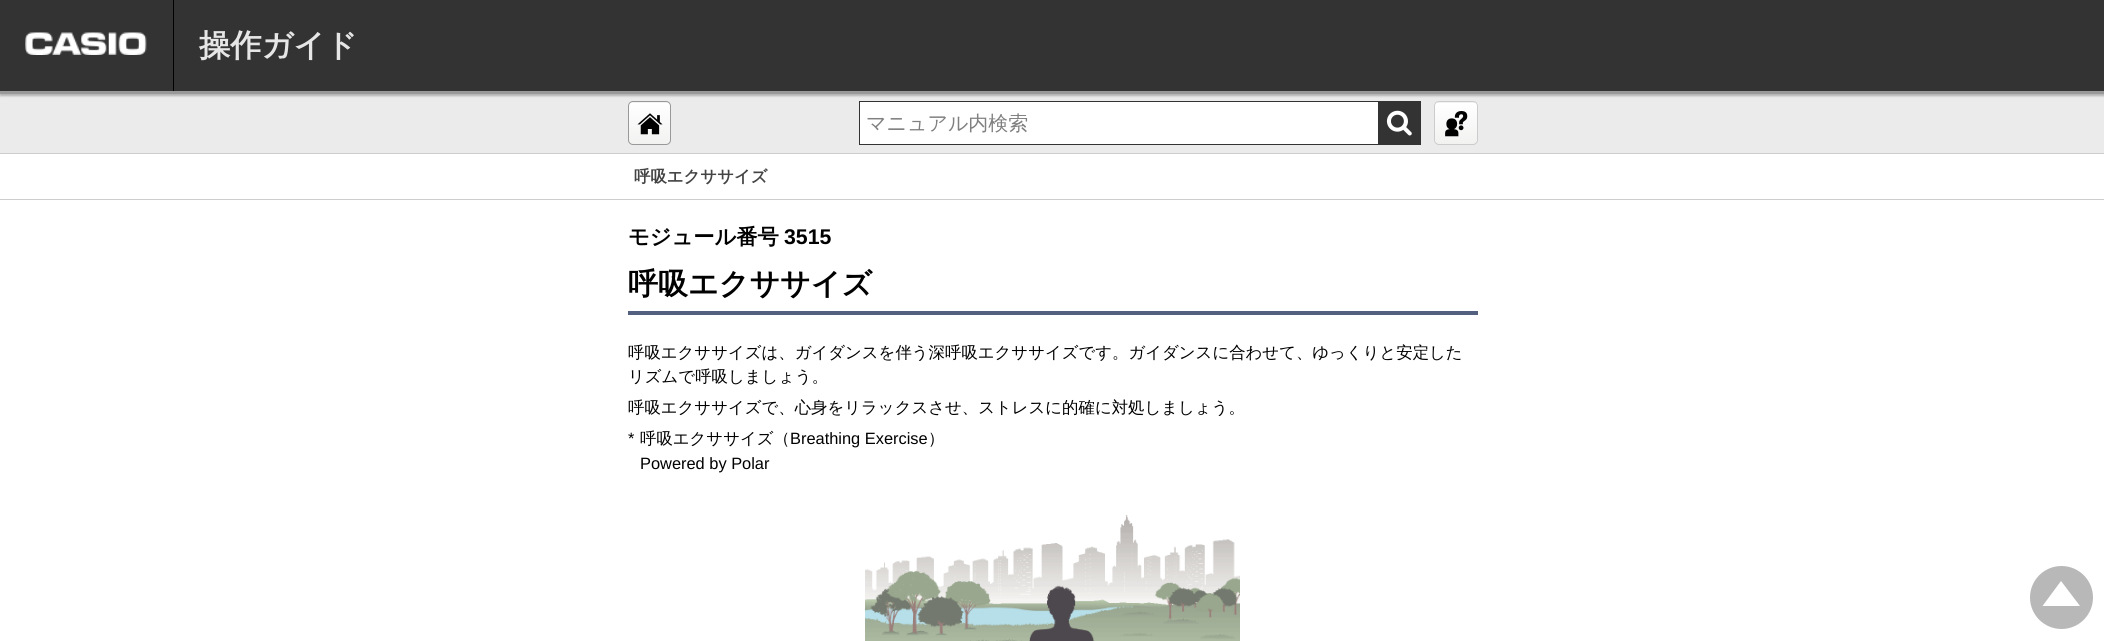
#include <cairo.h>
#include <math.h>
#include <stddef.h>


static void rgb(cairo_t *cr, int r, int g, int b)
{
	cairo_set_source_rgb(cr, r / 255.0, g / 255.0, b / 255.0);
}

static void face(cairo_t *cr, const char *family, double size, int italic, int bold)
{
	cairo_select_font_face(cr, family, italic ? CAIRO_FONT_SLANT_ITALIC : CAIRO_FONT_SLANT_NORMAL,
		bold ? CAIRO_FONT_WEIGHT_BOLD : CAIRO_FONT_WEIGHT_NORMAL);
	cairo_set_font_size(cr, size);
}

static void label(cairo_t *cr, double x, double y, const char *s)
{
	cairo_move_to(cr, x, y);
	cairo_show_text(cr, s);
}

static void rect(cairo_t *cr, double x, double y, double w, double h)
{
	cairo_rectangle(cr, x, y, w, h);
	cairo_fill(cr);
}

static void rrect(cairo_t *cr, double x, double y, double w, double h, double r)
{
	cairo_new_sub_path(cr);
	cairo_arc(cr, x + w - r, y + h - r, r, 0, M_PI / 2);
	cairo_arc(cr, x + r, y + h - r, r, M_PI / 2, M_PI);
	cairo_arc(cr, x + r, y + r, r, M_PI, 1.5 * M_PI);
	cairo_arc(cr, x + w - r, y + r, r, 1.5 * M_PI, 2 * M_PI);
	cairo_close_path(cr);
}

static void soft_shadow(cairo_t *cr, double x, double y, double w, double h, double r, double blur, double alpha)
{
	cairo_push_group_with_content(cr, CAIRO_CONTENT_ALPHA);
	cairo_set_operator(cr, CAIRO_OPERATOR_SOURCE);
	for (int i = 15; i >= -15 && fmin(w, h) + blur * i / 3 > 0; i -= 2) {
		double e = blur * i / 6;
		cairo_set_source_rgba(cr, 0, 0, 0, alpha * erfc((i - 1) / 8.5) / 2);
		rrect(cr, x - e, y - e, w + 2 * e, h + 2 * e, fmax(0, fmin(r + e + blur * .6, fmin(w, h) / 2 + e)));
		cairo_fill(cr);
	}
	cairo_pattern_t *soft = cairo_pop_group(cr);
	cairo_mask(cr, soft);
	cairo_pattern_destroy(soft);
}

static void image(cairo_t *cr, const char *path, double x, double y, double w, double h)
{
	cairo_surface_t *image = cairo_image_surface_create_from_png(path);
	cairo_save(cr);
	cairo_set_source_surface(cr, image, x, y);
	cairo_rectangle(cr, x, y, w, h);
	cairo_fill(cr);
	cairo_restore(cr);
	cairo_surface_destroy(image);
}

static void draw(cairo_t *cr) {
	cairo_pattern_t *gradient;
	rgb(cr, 255, 255, 255);
	cairo_paint(cr);
	rgb(cr, 235, 235, 235);
	rect(cr, 0, 94, 2104, 59);
	rgb(cr, 0, 0, 0);
	soft_shadow(cr, 0, 3, 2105, 93, 0, 1, 0.25);
	rgb(cr, 51, 51, 51);
	rect(cr, 0, 0, 2104, 91);
	rgb(cr, 153, 153, 153);
	rect(cr, 0, 91, 2104, 3);
	rgb(cr, 0, 0, 0);
	rect(cr, 173, 0, 1, 91);
	image(cr, "image0.png", 25, 32, 122, 23);
	face(cr, "WenQuanYi Zen Hei", 31.25, 0, 1);
	rgb(cr, 230, 230, 230);
	label(cr, 199, 56, "操作ガイド");
	cairo_save(cr);
	rrect(cr, 628, 101, 43, 44, 5);
	cairo_clip(cr);
	gradient = cairo_pattern_create_linear(649, 61, 649, 103);
	cairo_pattern_add_color_stop_rgba(gradient, 0, 1, 1, 1, 1);
	cairo_pattern_add_color_stop_rgba(gradient, 1, 0.949, 0.949, 0.945, 1);
	cairo_set_source(cr, gradient);
	cairo_pattern_destroy(gradient);
	rect(cr, 628, 101, 43, 2);
	gradient = cairo_pattern_create_linear(649, 103, 649, 144);
	cairo_pattern_add_color_stop_rgba(gradient, 0, 1, 1, 1, 1);
	cairo_pattern_add_color_stop_rgba(gradient, 1, 0.949, 0.949, 0.945, 1);
	cairo_set_source(cr, gradient);
	cairo_pattern_destroy(gradient);
	rect(cr, 628, 103, 43, 41);
	cairo_restore(cr);
	rrect(cr, 628.5, 101.5, 42, 43, 4.5);
	rgb(cr, 153, 153, 153);
	cairo_set_line_width(cr, 1);
	cairo_stroke(cr);
	image(cr, "image1.png", 637, 113, 26, 22);
	cairo_save(cr);
	rrect(cr, 1434, 101, 44, 44, 5);
	cairo_clip(cr);
	gradient = cairo_pattern_create_linear(1456, 61, 1456, 103);
	cairo_pattern_add_color_stop_rgba(gradient, 0, 1, 1, 1, 1);
	cairo_pattern_add_color_stop_rgba(gradient, 1, 0.949, 0.949, 0.945, 1);
	cairo_set_source(cr, gradient);
	cairo_pattern_destroy(gradient);
	rect(cr, 1434, 101, 44, 2);
	gradient = cairo_pattern_create_linear(1456, 103, 1456, 144);
	cairo_pattern_add_color_stop_rgba(gradient, 0, 1, 1, 1, 1);
	cairo_pattern_add_color_stop_rgba(gradient, 1, 0.949, 0.949, 0.945, 1);
	cairo_set_source(cr, gradient);
	cairo_pattern_destroy(gradient);
	rect(cr, 1434, 103, 44, 41);
	cairo_restore(cr);
	rrect(cr, 1434.5, 101.5, 43, 43, 4.5);
	rgb(cr, 204, 204, 204);
	cairo_stroke(cr);
	image(cr, "image2.png", 1445, 111, 23, 26);
	rgb(cr, 255, 255, 255);
	rect(cr, 860, 102, 518, 42);
	cairo_rectangle(cr, 859.5, 101.5, 561, 43);
	rgb(cr, 51, 51, 51);
	cairo_stroke(cr);
	face(cr, "WenQuanYi Zen Hei Medium", 20, 0, 0);
	rgb(cr, 128, 128, 128);
	label(cr, 866, 130, "マニュアル内検索");
	image(cr, "image3.png", 1378, 102, 42, 42);
	rgb(cr, 204, 204, 204);
	rect(cr, 0, 153, 2104, 1);
	rect(cr, 0, 199, 2104, 1);
	face(cr, "WenQuanYi Zen Hei", 16.4, 0, 1);
	rgb(cr, 68, 68, 68);
	label(cr, 634, 182, "呼吸エクササイズ");
	face(cr, "WenQuanYi Zen Hei", 21.25, 0, 1);
	rgb(cr, 0, 0, 0);
	label(cr, 628, 244, "モジュール番号");
	face(cr, "Liberation Sans", 21.25, 0, 1);
	label(cr, 784, 244, "3515");
	rgb(cr, 84, 96, 127);
	rect(cr, 628, 311, 850, 4);
	face(cr, "WenQuanYi Zen Hei", 30, 0, 1);
	rgb(cr, 0, 0, 0);
	label(cr, 628, 294, "呼吸エクササイズ");
	face(cr, "WenQuanYi Zen Hei Medium", 16.4, 0, 0);
	label(cr, 628, 358, "呼吸エクササイズは、ガイダンスを伴う深呼吸エクササイズです。ガイダンスに合わせて、ゆっくりと安定した");
	label(cr, 628, 382, "リズムで呼吸しましょう。");
	label(cr, 628, 413, "呼吸エクササイズで、心身をリラックスさせ、ストレスに的確に対処しましょう。");
	face(cr, "Liberation Sans", 16.4, 0, 0);
	label(cr, 628, 444, "*");
	face(cr, "WenQuanYi Zen Hei Medium", 16.4, 0, 0);
	label(cr, 640, 444, "呼吸エクササイズ（");
	face(cr, "Liberation Sans", 16.4, 0, 0);
	label(cr, 790, 444, "Breathing Exercise");
	face(cr, "WenQuanYi Zen Hei Medium", 16.4, 0, 0);
	label(cr, 928, 444, "）");
	face(cr, "Liberation Sans", 16.4, 0, 0);
	label(cr, 640, 469, "Powered by Polar");
	image(cr, "image4.png", 865, 515, 375, 126);
	rgb(cr, 184, 184, 184);
	cairo_arc(cr, 2061.5, 597.5, 31.5, 0, 2 * M_PI);
	cairo_fill(cr);
	rgb(cr, 255, 255, 255);
	cairo_new_path(cr);
	cairo_move_to(cr, 2080, 606);
	cairo_line_to(cr, 2042.5, 606);
	cairo_line_to(cr, 2061, 581);
	cairo_close_path(cr);
	cairo_fill(cr);
}

int main(void) {
	cairo_surface_t *surface = cairo_image_surface_create(CAIRO_FORMAT_RGB24, 2104, 641);
	cairo_t *cr = cairo_create(surface);
	cairo_font_options_t *options = cairo_font_options_create();
	cairo_font_options_set_hint_metrics(options, CAIRO_HINT_METRICS_OFF);
	cairo_font_options_set_hint_style(options, CAIRO_HINT_STYLE_NONE);
	cairo_set_font_options(cr, options);
	cairo_set_miter_limit(cr, 4);
	draw(cr);
	cairo_surface_write_to_png(surface, "render.png");
	cairo_font_options_destroy(options);
	cairo_destroy(cr);
	cairo_surface_destroy(surface);
	return 0;
}
